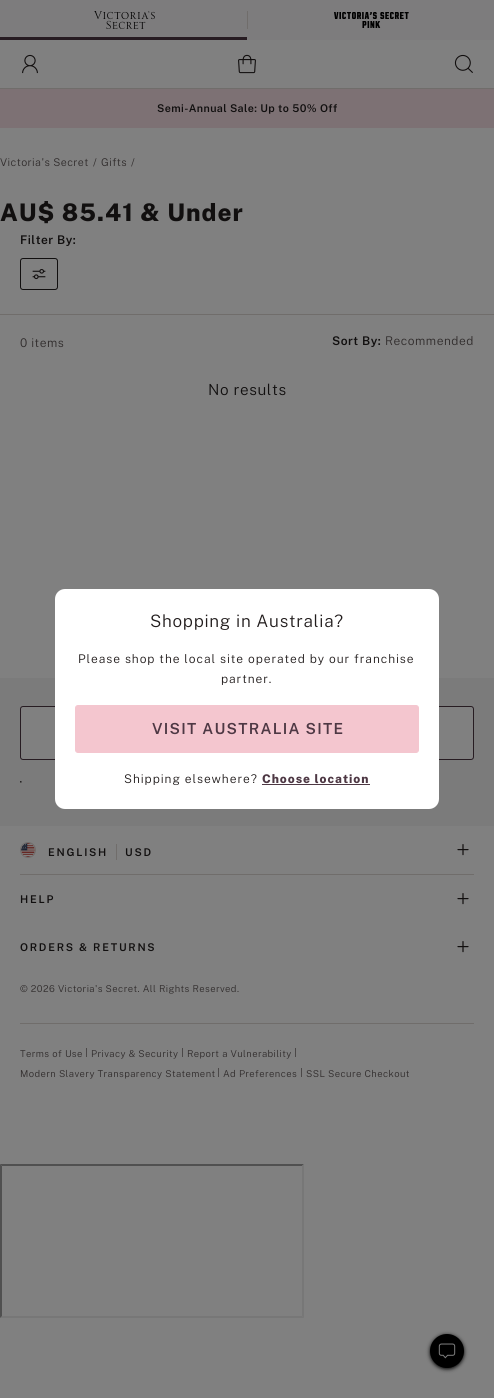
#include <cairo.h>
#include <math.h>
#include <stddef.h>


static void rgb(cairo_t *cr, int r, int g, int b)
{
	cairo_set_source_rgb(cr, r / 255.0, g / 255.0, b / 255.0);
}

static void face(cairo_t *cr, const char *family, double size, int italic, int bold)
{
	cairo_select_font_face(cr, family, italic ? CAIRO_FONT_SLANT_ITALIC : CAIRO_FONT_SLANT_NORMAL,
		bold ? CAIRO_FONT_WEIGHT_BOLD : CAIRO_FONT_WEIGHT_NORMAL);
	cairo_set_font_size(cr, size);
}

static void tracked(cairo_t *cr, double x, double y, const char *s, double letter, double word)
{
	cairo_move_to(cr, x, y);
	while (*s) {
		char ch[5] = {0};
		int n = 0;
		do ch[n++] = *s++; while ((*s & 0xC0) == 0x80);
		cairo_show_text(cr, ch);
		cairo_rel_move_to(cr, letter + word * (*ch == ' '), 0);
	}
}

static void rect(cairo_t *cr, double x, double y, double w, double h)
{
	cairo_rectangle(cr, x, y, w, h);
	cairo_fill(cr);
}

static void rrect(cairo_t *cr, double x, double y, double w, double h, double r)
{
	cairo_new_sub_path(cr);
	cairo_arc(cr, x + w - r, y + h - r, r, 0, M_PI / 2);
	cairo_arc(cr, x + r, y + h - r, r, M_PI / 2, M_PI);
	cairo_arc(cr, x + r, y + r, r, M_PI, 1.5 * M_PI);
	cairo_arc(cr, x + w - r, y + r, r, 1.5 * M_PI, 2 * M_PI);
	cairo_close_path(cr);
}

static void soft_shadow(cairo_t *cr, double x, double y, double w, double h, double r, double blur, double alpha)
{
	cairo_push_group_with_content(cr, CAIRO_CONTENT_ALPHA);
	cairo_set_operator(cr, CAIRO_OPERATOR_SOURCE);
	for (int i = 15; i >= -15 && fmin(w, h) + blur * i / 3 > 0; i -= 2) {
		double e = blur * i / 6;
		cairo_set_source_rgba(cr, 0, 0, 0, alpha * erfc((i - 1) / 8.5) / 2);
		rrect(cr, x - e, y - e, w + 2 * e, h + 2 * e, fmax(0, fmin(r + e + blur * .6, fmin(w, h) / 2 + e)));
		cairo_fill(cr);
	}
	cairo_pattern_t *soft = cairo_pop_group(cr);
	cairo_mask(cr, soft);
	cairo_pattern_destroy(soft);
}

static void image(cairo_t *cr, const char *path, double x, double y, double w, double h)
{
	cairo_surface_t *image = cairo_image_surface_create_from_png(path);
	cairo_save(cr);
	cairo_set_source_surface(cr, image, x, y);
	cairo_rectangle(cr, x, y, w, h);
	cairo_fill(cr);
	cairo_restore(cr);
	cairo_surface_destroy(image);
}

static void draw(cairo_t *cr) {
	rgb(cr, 128, 128, 128);
	cairo_paint(cr);
	rgb(cr, 125, 124, 125);
	rect(cr, 0, 0, 494, 40);
	rgb(cr, 39, 28, 34);
	rect(cr, 0, 37, 247, 3);
	image(cr, "image0.png", 94, 11, 61, 18);
	rgb(cr, 112, 109, 107);
	rect(cr, 247, 11, 1, 18);
	image(cr, "image1.png", 334, 12, 75, 16);
	rect(cr, 0, 88, 494, 1);
	image(cr, "image2.png", 22, 54, 16, 20);
	image(cr, "image3.png", 238, 54, 18, 20);
	image(cr, "image4.png", 454, 54, 19, 19);
	rgb(cr, 125, 113, 116);
	rect(cr, 0, 89, 494, 39);
	face(cr, "Public Sans SemiBold", 10.7, 0, 0);
	rgb(cr, 17, 15, 15);
	tracked(cr, 157, 112, "Semi-Annual Sale: Up to 50% Off", 0.4, 0);
	face(cr, "Public Sans Light", 10.7, 0, 0);
	rgb(cr, 48, 44, 44);
	tracked(cr, 0, 166, "Victoria's Secret", 0.4, 0);
	tracked(cr, 93, 166, "/", 0.4, 0);
	tracked(cr, 101, 166, "Gifts", 0.4, 0);
	tracked(cr, 131, 166, "/", 0.4, 0);
	face(cr, "Public Sans ExtraBold", 24.25, 0, 0);
	rgb(cr, 17, 15, 15);
	tracked(cr, 0, 221, "AU$ 85.41 & Under", 1, 0);
	face(cr, "Public Sans SemiBold", 12, 0, 0);
	tracked(cr, 20, 244, "Filter By:", 0.5, 0);
	rrect(cr, 20.5, 258.5, 37, 31, 2.5);
	cairo_set_line_width(cr, 1);
	cairo_stroke(cr);
	image(cr, "image5.png", 32, 269, 14, 11);
	rgb(cr, 112, 109, 107);
	rect(cr, 0, 314, 494, 1);
	face(cr, "Public Sans Light", 12, 0, 0);
	rgb(cr, 48, 44, 44);
	tracked(cr, 20, 347, "0 items", 0.5, 0);
	face(cr, "Public Sans SemiBold", 12, 0, 0);
	rgb(cr, 17, 15, 15);
	tracked(cr, 332, 345, "Sort By:", 0.5, 0);
	face(cr, "Public Sans Light", 12, 0, 0);
	rgb(cr, 48, 44, 44);
	tracked(cr, 385, 345, "Recommended", 0.5, 0);
	face(cr, "Public Sans Light", 15.25, 0, 0);
	rgb(cr, 17, 15, 15);
	tracked(cr, 208, 395, "No results", 0.6, 0);
	rgb(cr, 0, 0, 0);
	soft_shadow(cr, 430, 1335, 34, 34, 17, 2, 1);
	rgb(cr, 0, 0, 0);
	cairo_arc(cr, 447, 1351, 17, 0, 2 * M_PI);
	cairo_fill(cr);
	image(cr, "image6.png", 438, 1343, 18, 16);
	rgb(cr, 123, 123, 123);
	rect(cr, 0, 678, 494, 148);
	rgb(cr, 128, 128, 128);
	rrect(cr, 20.5, 706.5, 453, 53, 2.5);
	cairo_fill_preserve(cr);
	rgb(cr, 39, 28, 34);
	cairo_stroke(cr);
	image(cr, "image7.png", 20, 781, 2, 2);
	rgb(cr, 112, 109, 107);
	rect(cr, 20, 874, 454, 1);
	cairo_arc(cr, 28, 850, 7.5, 0, 2 * M_PI);
	cairo_stroke(cr);
	image(cr, "image8.png", 21, 843, 14, 14);
	face(cr, "Public Sans SemiBold", 10.7, 0, 0);
	rgb(cr, 17, 15, 15);
	tracked(cr, 48, 856, "ENGLISH", 1.75, 0);
	rgb(cr, 112, 109, 107);
	rect(cr, 116, 844, 1, 16);
	rgb(cr, 17, 15, 15);
	tracked(cr, 125, 856, "USD", 1.75, 0);
	image(cr, "image9.png", 457, 844, 12, 12);
	tracked(cr, 20, 903, "HELP", 1.75, 0);
	image(cr, "image9.png", 457, 893, 12, 12);
	tracked(cr, 20, 951, "ORDERS & RETURNS", 1.75, 0);
	image(cr, "image9.png", 457, 941, 12, 12);
	face(cr, "Public Sans Light", 9.5, 0, 0);
	rgb(cr, 48, 44, 44);
	tracked(cr, 20, 992, "© 2026 Victoria's Secret. All Rights Reserved.", 0.4, 0);
	rgb(cr, 112, 109, 107);
	rect(cr, 20, 1023, 454, 1);
	rgb(cr, 48, 44, 44);
	tracked(cr, 20, 1057, "Terms of Use", 0.4, 0);
	rgb(cr, 75, 72, 72);
	rect(cr, 86, 1048, 1, 9);
	rgb(cr, 48, 44, 44);
	tracked(cr, 91, 1057, "Privacy & Security", 0.4, 0);
	rgb(cr, 75, 72, 72);
	rect(cr, 182, 1048, 1, 9);
	rgb(cr, 48, 44, 44);
	tracked(cr, 187, 1057, "Report a Vulnerability", 0.4, 0);
	rgb(cr, 75, 72, 72);
	rect(cr, 295, 1048, 1, 9);
	rgb(cr, 48, 44, 44);
	tracked(cr, 20, 1077, "Modern Slavery Transparency Statement", 0.4, 0);
	rgb(cr, 75, 72, 72);
	rect(cr, 218, 1068, 1, 9);
	rgb(cr, 48, 44, 44);
	tracked(cr, 223, 1077, "Ad Preferences", 0.4, 0);
	rgb(cr, 75, 72, 72);
	rect(cr, 301, 1068, 1, 9);
	rgb(cr, 48, 44, 44);
	tracked(cr, 306, 1077, "SSL Secure Checkout", 0.4, 0);
	rgb(cr, 255, 255, 255);
	rrect(cr, 55, 589, 384, 220, 10);
	cairo_fill(cr);
	face(cr, "Public Sans Light", 17.1, 0, 0);
	rgb(cr, 34, 29, 29);
	tracked(cr, 150, 627, "Shopping in Australia?", 0.7, 0);
	face(cr, "Public Sans Light", 12, 0, 0);
	tracked(cr, 78, 663, "Please shop the local site operated by our franchise", 0.95, 0);
	tracked(cr, 221, 683, "partner.", 0.95, 0);
	rgb(cr, 244, 198, 207);
	rrect(cr, 75.5, 705.5, 343, 47, 2.5);
	cairo_fill_preserve(cr);
	cairo_stroke(cr);
	face(cr, "Public Sans SemiBold", 15.25, 0, 0);
	rgb(cr, 78, 56, 68);
	tracked(cr, 152, 734, "VISIT AUSTRALIA SITE", 1.25, 0);
	face(cr, "Public Sans Light", 12, 0, 0);
	rgb(cr, 34, 29, 29);
	tracked(cr, 124, 783, "Shipping elsewhere?", 0.95, 0);
	face(cr, "Public Sans ExtraBold", 12, 0, 0);
	rgb(cr, 78, 56, 68);
	tracked(cr, 262, 783, "Choose location", 0.95, 0);
	rect(cr, 262, 784, 108, 1);
	rgb(cr, 80, 80, 80);
	cairo_new_path(cr);
	cairo_move_to(cr, 0, 1164);
	cairo_line_to(cr, 304, 1164);
	cairo_line_to(cr, 302, 1166);
	cairo_line_to(cr, 2, 1166);
	cairo_close_path(cr);
	cairo_fill(cr);
	rgb(cr, 119, 119, 119);
	cairo_new_path(cr);
	cairo_move_to(cr, 304, 1164);
	cairo_line_to(cr, 304, 1318);
	cairo_line_to(cr, 302, 1316);
	cairo_line_to(cr, 302, 1166);
	cairo_close_path(cr);
	cairo_fill(cr);
	cairo_new_path(cr);
	cairo_move_to(cr, 304, 1318);
	cairo_line_to(cr, 0, 1318);
	cairo_line_to(cr, 2, 1316);
	cairo_line_to(cr, 302, 1316);
	cairo_close_path(cr);
	cairo_fill(cr);
	rgb(cr, 80, 80, 80);
	cairo_new_path(cr);
	cairo_move_to(cr, 0, 1318);
	cairo_line_to(cr, 0, 1164);
	cairo_line_to(cr, 2, 1166);
	cairo_line_to(cr, 2, 1316);
	cairo_close_path(cr);
	cairo_fill(cr);
}

int main(void) {
	cairo_surface_t *surface = cairo_image_surface_create(CAIRO_FORMAT_RGB24, 494, 1398);
	cairo_t *cr = cairo_create(surface);
	cairo_font_options_t *options = cairo_font_options_create();
	cairo_font_options_set_hint_metrics(options, CAIRO_HINT_METRICS_OFF);
	cairo_font_options_set_hint_style(options, CAIRO_HINT_STYLE_NONE);
	cairo_set_font_options(cr, options);
	cairo_set_miter_limit(cr, 4);
	draw(cr);
	cairo_surface_write_to_png(surface, "render.png");
	cairo_font_options_destroy(options);
	cairo_destroy(cr);
	cairo_surface_destroy(surface);
	return 0;
}
